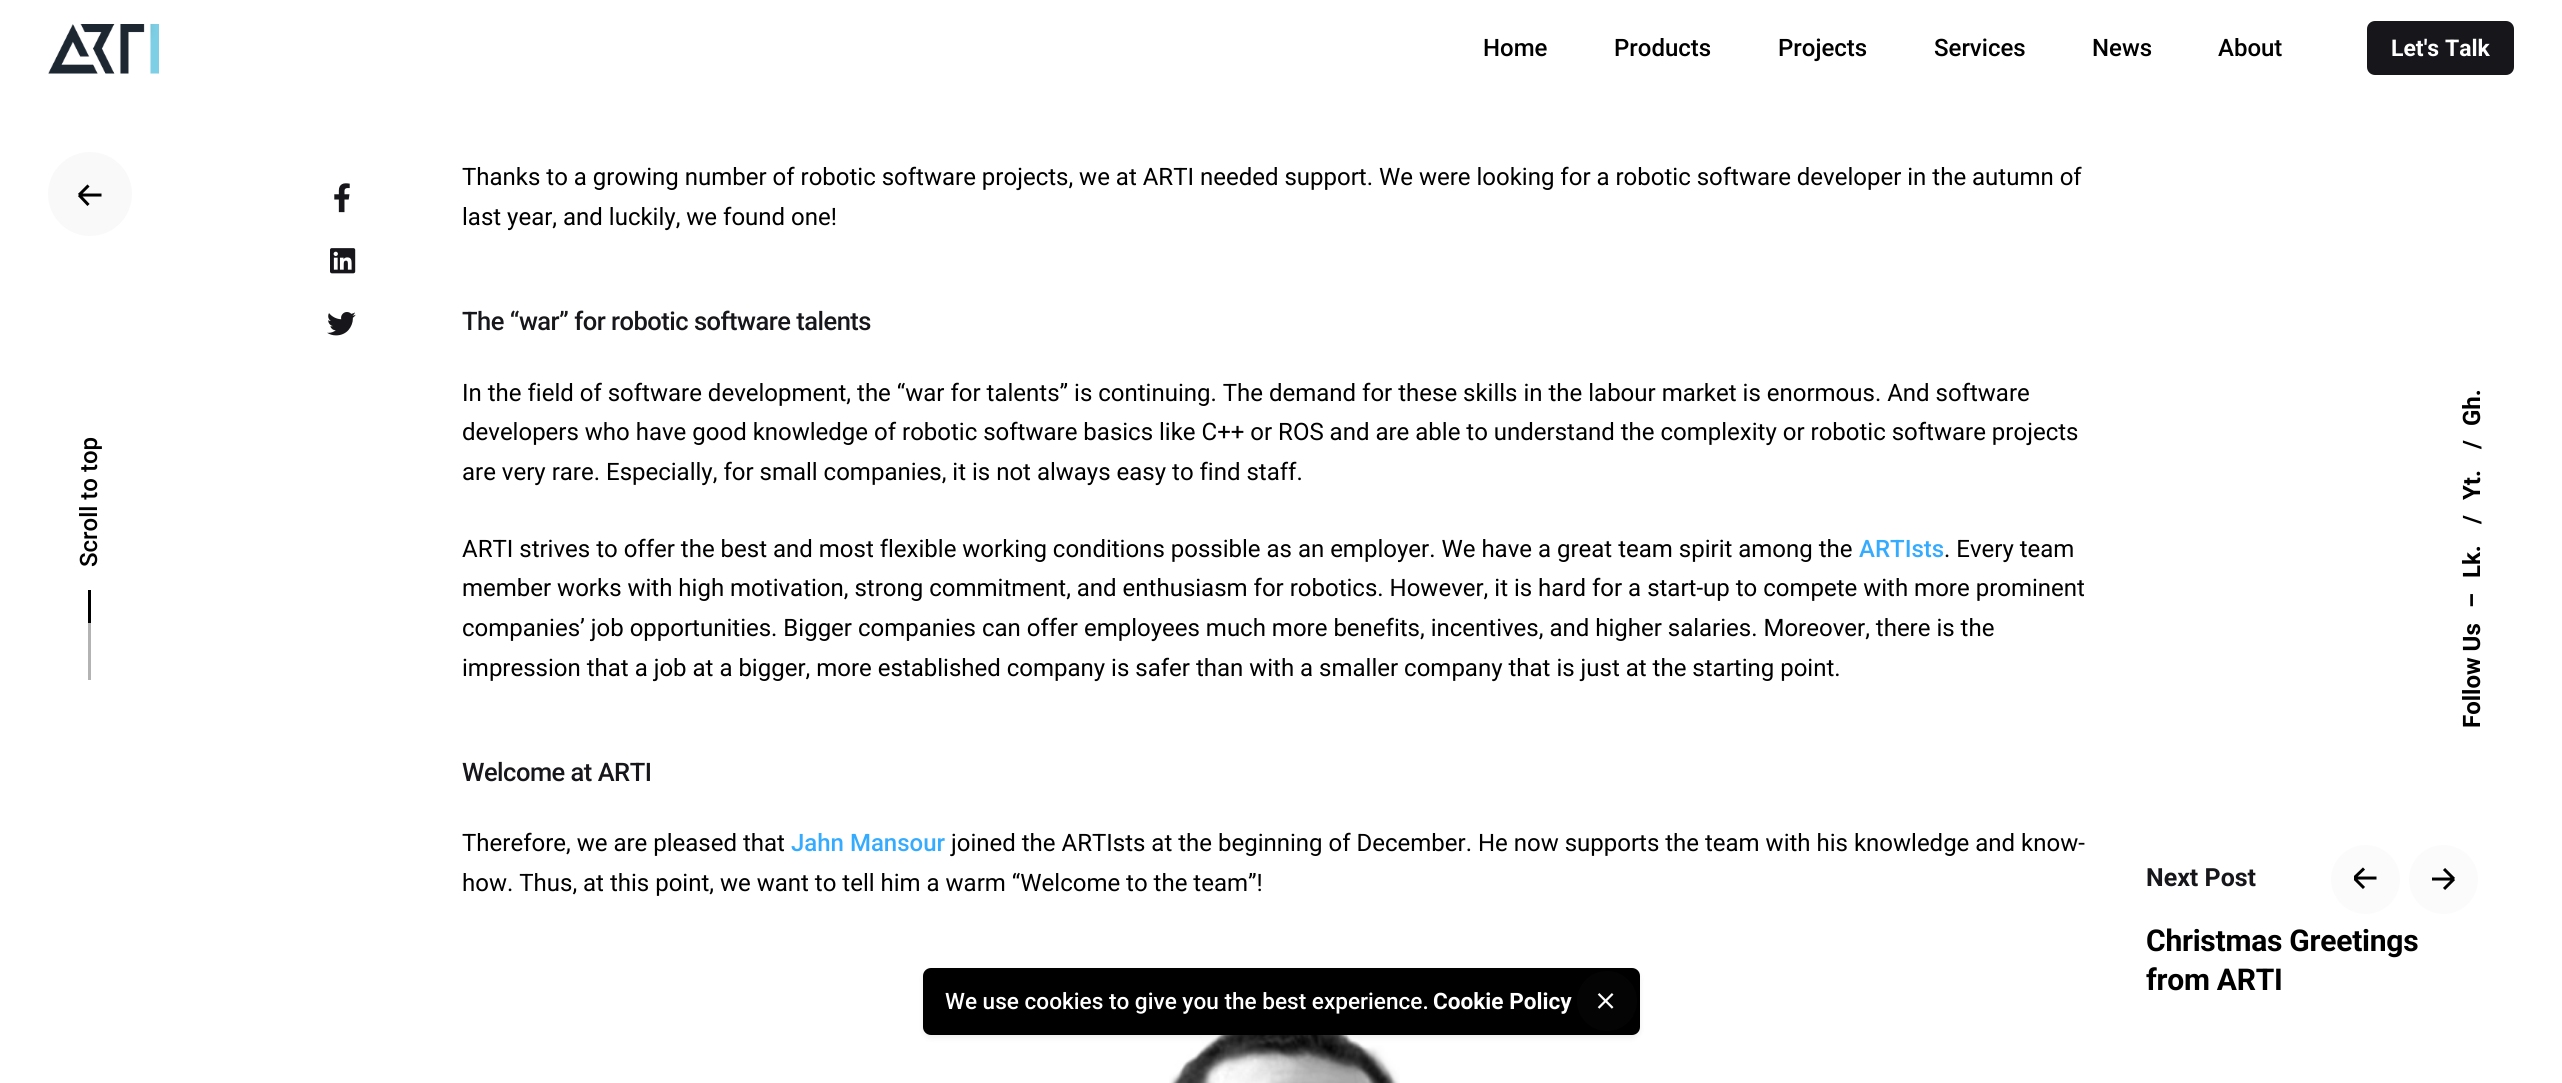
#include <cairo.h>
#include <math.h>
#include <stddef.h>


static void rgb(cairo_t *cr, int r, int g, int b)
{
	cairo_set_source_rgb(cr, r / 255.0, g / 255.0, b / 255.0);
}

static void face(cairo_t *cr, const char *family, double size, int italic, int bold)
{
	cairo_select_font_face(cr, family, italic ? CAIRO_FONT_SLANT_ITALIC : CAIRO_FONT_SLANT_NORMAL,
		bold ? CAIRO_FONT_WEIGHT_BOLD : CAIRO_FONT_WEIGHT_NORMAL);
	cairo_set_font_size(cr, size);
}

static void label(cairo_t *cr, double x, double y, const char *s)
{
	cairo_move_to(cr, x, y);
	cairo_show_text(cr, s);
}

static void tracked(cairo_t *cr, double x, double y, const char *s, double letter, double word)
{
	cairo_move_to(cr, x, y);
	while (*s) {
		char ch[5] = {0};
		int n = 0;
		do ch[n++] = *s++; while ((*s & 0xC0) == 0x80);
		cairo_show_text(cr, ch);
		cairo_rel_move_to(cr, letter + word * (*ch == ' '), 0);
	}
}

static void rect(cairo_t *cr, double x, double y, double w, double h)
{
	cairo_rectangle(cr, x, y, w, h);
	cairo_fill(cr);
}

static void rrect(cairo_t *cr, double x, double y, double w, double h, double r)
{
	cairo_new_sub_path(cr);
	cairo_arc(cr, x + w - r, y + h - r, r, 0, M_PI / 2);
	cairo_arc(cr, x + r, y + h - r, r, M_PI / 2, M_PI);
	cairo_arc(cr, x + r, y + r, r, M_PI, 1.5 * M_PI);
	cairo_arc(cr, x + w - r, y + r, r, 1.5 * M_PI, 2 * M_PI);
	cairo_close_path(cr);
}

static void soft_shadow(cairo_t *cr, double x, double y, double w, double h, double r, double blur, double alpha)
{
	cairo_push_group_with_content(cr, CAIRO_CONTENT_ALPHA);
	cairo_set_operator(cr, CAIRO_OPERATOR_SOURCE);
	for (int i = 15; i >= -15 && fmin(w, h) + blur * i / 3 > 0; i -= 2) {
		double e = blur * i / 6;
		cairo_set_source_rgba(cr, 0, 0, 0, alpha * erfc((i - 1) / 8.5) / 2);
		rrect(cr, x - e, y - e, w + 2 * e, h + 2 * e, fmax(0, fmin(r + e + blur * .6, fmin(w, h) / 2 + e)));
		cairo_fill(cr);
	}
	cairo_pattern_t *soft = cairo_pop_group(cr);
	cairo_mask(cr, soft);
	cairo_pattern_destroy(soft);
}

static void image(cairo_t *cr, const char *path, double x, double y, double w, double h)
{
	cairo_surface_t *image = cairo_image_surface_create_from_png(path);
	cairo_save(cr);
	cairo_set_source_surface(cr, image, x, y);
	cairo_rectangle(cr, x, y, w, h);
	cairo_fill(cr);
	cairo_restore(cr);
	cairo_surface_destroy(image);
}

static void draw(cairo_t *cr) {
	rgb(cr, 255, 255, 255);
	cairo_paint(cr);
	image(cr, "image0.png", 48, 24, 111, 50);
	face(cr, "Roboto Medium", 24, 0, 0);
	rgb(cr, 0, 0, 0);
	label(cr, 1483, 56, "Home");
	label(cr, 1614, 56, "Products");
	label(cr, 1778, 56, "Projects");
	label(cr, 1934, 56, "Services");
	label(cr, 2092, 56, "News");
	label(cr, 2218, 56, "About");
	rgb(cr, 23, 22, 26);
	rrect(cr, 2368, 22, 145, 52, 7);
	cairo_fill_preserve(cr);
	cairo_stroke(cr);
	face(cr, "Roboto", 23, 0, 1);
	rgb(cr, 255, 255, 255);
	label(cr, 2391, 56, "Let's Talk");
	rgb(cr, 249, 249, 249);
	cairo_new_path(cr);
	cairo_arc(cr, 90, 194, 42, 0, 2 * M_PI);
	cairo_fill(cr);
	cairo_new_path(cr);
	cairo_move_to(cr, 101.5, 195);
	cairo_line_to(cr, 79, 195);
	cairo_move_to(cr, 79, 195);
	cairo_line_to(cr, 88.5, 205);
	cairo_move_to(cr, 79, 195);
	cairo_line_to(cr, 88.5, 185.5);
	rgb(cr, 0, 0, 0);
	cairo_set_line_width(cr, 3);
	cairo_set_line_join(cr, CAIRO_LINE_JOIN_ROUND);
	cairo_stroke(cr);
	image(cr, "image1.png", 334, 183, 16, 30);
	image(cr, "image2.png", 330, 248, 26, 26);
	image(cr, "image3.png", 327, 312, 29, 24);
	face(cr, "Roboto", 24, 0, 0);
	label(cr, 462, 185, "Thanks to a growing number of robotic software projects, we at ARTI needed support. We were looking for a robotic software developer in the autumn of");
	label(cr, 462, 225, "last year, and luckily, we found one!");
	face(cr, "Roboto Medium", 25.5, 0, 0);
	rgb(cr, 23, 22, 26);
	tracked(cr, 462, 330, "The “war” for robotic software talents", -0.5, 0);
	face(cr, "Roboto", 24, 0, 0);
	rgb(cr, 0, 0, 0);
	label(cr, 462, 401, "In the field of software development, the “war for talents” is continuing. The demand for these skills in the labour market is enormous. And software");
	label(cr, 462, 440, "developers who have good knowledge of robotic software basics like C++ or ROS and are able to understand the complexity or robotic software projects");
	label(cr, 462, 480, "are very rare. Especially, for small companies, it is not always easy to find staff.");
	label(cr, 462, 557, "ARTI strives to offer the best and most flexible working conditions possible as an employer. We have a great team spirit among the");
	face(cr, "Roboto Medium", 24, 0, 0);
	rgb(cr, 53, 171, 255);
	label(cr, 1859, 557, "ARTIsts");
	face(cr, "Roboto", 24, 0, 0);
	rgb(cr, 0, 0, 0);
	label(cr, 1944, 557, ". Every team");
	label(cr, 462, 596, "member works with high motivation, strong commitment, and enthusiasm for robotics. However, it is hard for a start-up to compete with more prominent");
	label(cr, 462, 636, "companies’ job opportunities. Bigger companies can offer employees much more benefits, incentives, and higher salaries. Moreover, there is the");
	label(cr, 462, 676, "impression that a job at a bigger, more established company is safer than with a smaller company that is just at the starting point.");
	face(cr, "Roboto Medium", 25.5, 0, 0);
	rgb(cr, 23, 22, 26);
	tracked(cr, 462, 781, "Welcome at ARTI", -0.5, 0);
	face(cr, "Roboto", 24, 0, 0);
	rgb(cr, 0, 0, 0);
	label(cr, 462, 851, "Therefore, we are pleased that");
	face(cr, "Roboto Medium", 24, 0, 0);
	rgb(cr, 53, 171, 255);
	label(cr, 791, 851, "Jahn Mansour");
	face(cr, "Roboto", 24, 0, 0);
	rgb(cr, 0, 0, 0);
	label(cr, 951, 851, "joined the ARTIsts at the beginning of December. He now supports the team with his knowledge and know-");
	label(cr, 462, 891, "how. Thus, at this point, we want to tell him a warm “Welcome to the team”!");
	image(cr, "image4.png", 1169, 1035, 231, 48);
	face(cr, "Roboto", 25, 0, 1);
	rgb(cr, 23, 22, 26);
	label(cr, 2146, 886, "Next Post");
	rgb(cr, 251, 251, 251);
	cairo_new_path(cr);
	cairo_arc(cr, 2365.5, 879.5, 34.5, 0, 2 * M_PI);
	cairo_fill(cr);
	cairo_save(cr);
	cairo_rectangle(cr, 2354, 867, 24, 24);
	cairo_clip(cr);
	cairo_new_path(cr);
	cairo_move_to(cr, 2376.5, 878);
	cairo_line_to(cr, 2354, 878);
	cairo_move_to(cr, 2354, 878);
	cairo_line_to(cr, 2364, 888);
	cairo_move_to(cr, 2354, 878);
	cairo_line_to(cr, 2364, 868.5);
	rgb(cr, 0, 0, 0);
	cairo_stroke(cr);
	cairo_restore(cr);
	cairo_arc(cr, 2443.5, 879.5, 34.5, 0, 2 * M_PI);
	cairo_fill(cr);
	cairo_save(cr);
	cairo_rectangle(cr, 2432, 867, 24, 24);
	cairo_clip(cr);
	cairo_new_path(cr);
	cairo_move_to(cr, 2431.5, 879);
	cairo_line_to(cr, 2454, 879);
	cairo_move_to(cr, 2454, 879);
	cairo_line_to(cr, 2444, 869);
	cairo_move_to(cr, 2454, 879);
	cairo_line_to(cr, 2444, 889);
	rgb(cr, 0, 0, 0);
	cairo_stroke(cr);
	cairo_restore(cr);
	face(cr, "Roboto", 30, 0, 1);
	rgb(cr, 0, 0, 0);
	tracked(cr, 2146, 951, "Christmas Greetings", -0.25, 0);
	tracked(cr, 2146, 990, "from ARTI", -0.25, 0);
	face(cr, "Roboto Medium", 24, 0, 0);
	cairo_save(cr);
	cairo_translate(cr, 97, 567);
	cairo_rotate(cr, -90 * M_PI / 180);
	label(cr, 0, 0, "Scroll to top");
	cairo_restore(cr);
	rect(cr, 88, 590, 3, 33);
	rgb(cr, 179, 179, 179);
	rect(cr, 88, 623, 3, 57);
	face(cr, "Roboto", 24, 0, 1);
	rgb(cr, 0, 0, 0);
	cairo_save(cr);
	cairo_translate(cr, 2480, 426);
	cairo_rotate(cr, -90 * M_PI / 180);
	label(cr, 0, 0, "Gh.");
	cairo_restore(cr);
	cairo_save(cr);
	cairo_translate(cr, 2480, 449);
	cairo_rotate(cr, -90 * M_PI / 180);
	label(cr, 0, 0, "/");
	cairo_restore(cr);
	cairo_save(cr);
	cairo_translate(cr, 2480, 500);
	cairo_rotate(cr, -90 * M_PI / 180);
	label(cr, 0, 0, "Yt.");
	cairo_restore(cr);
	cairo_save(cr);
	cairo_translate(cr, 2480, 524);
	cairo_rotate(cr, -90 * M_PI / 180);
	label(cr, 0, 0, "/");
	cairo_restore(cr);
	cairo_save(cr);
	cairo_translate(cr, 2480, 578);
	cairo_rotate(cr, -90 * M_PI / 180);
	label(cr, 0, 0, "Lk.");
	cairo_restore(cr);
	cairo_save(cr);
	cairo_translate(cr, 2480, 608);
	cairo_rotate(cr, -90 * M_PI / 180);
	label(cr, 0, 0, "–");
	cairo_restore(cr);
	cairo_save(cr);
	cairo_translate(cr, 2480, 728);
	cairo_rotate(cr, -90 * M_PI / 180);
	label(cr, 0, 0, "Follow Us");
	cairo_restore(cr);
	rgb(cr, 0, 0, 0);
	soft_shadow(cr, 923, 971, 717, 67, 8, 3, 0.07);
	rgb(cr, 0, 0, 0);
	rrect(cr, 923, 968, 717, 67, 8);
	cairo_fill(cr);
	face(cr, "Roboto Medium", 22.6, 0, 0);
	rgb(cr, 255, 255, 255);
	label(cr, 945, 1009, "We use cookies to give you the best experience.");
	face(cr, "Roboto", 22.6, 0, 1);
	label(cr, 1433, 1009, "Cookie Policy");
	rgb(cr, 4, 4, 4);
	cairo_new_path(cr);
	cairo_arc(cr, 1607, 1001, 30, 0, 2 * M_PI);
	cairo_fill(cr);
	image(cr, "image5.png", 1597, 993, 17, 16);
}

int main(void) {
	cairo_surface_t *surface = cairo_image_surface_create(CAIRO_FORMAT_RGB24, 2562, 1083);
	cairo_t *cr = cairo_create(surface);
	cairo_font_options_t *options = cairo_font_options_create();
	cairo_font_options_set_hint_metrics(options, CAIRO_HINT_METRICS_OFF);
	cairo_font_options_set_hint_style(options, CAIRO_HINT_STYLE_NONE);
	cairo_set_font_options(cr, options);
	cairo_set_miter_limit(cr, 4);
	draw(cr);
	cairo_surface_write_to_png(surface, "render.png");
	cairo_font_options_destroy(options);
	cairo_destroy(cr);
	cairo_surface_destroy(surface);
	return 0;
}
